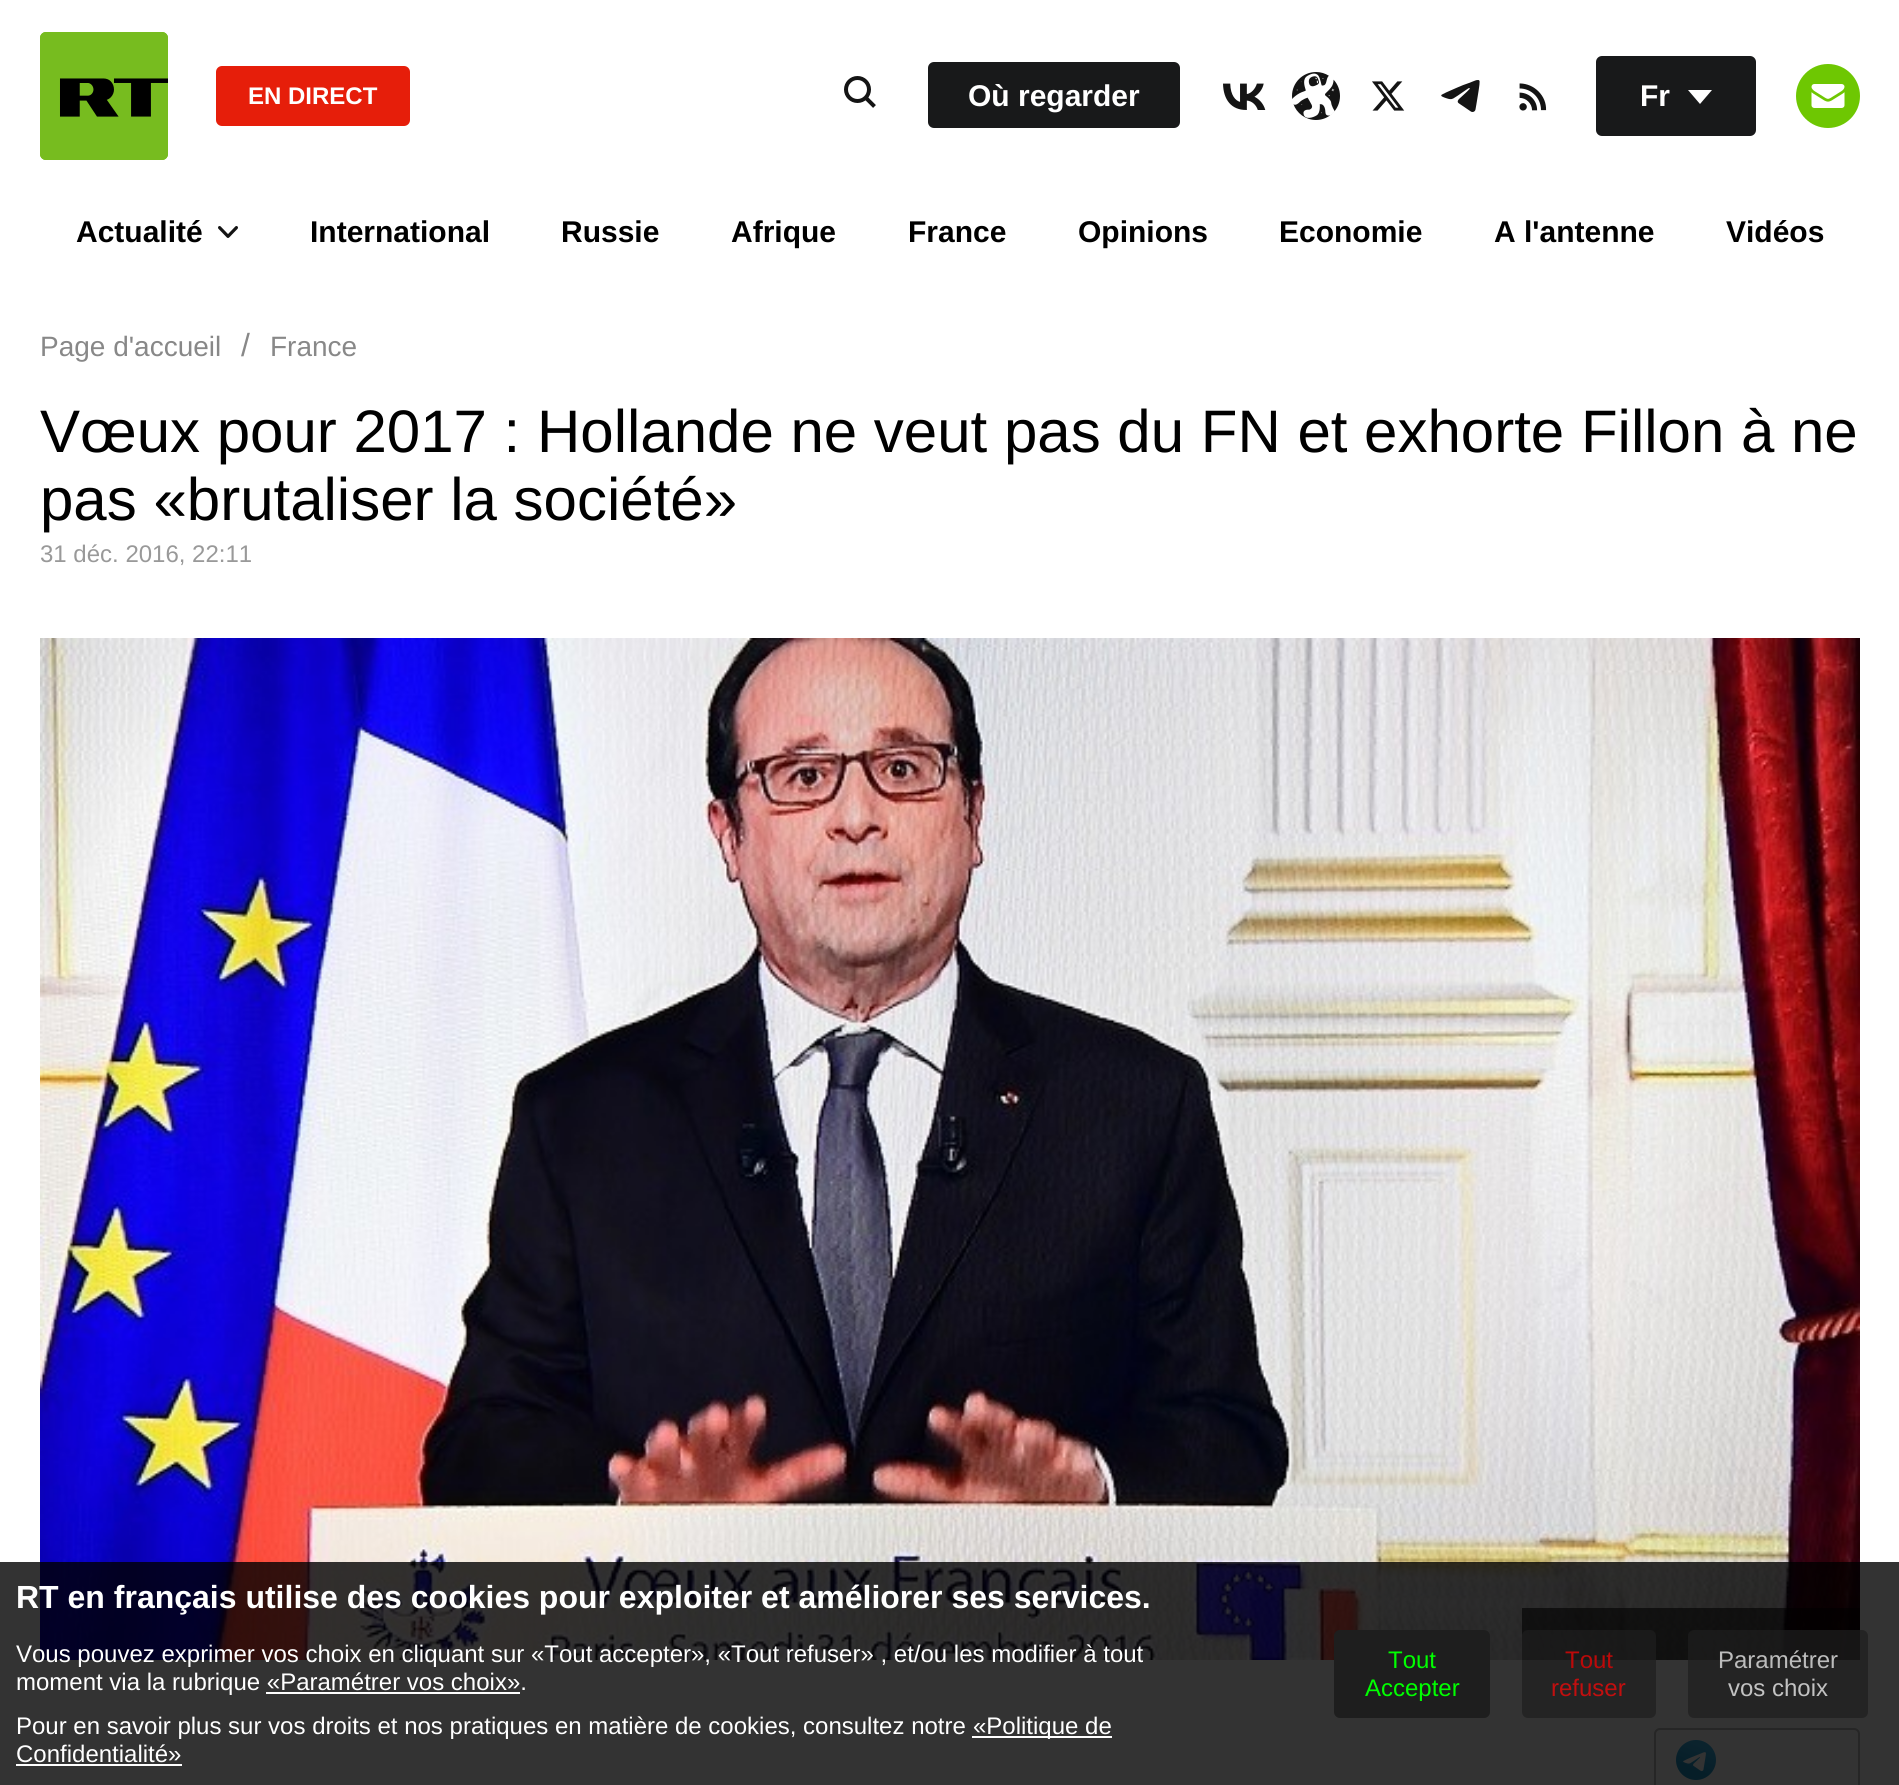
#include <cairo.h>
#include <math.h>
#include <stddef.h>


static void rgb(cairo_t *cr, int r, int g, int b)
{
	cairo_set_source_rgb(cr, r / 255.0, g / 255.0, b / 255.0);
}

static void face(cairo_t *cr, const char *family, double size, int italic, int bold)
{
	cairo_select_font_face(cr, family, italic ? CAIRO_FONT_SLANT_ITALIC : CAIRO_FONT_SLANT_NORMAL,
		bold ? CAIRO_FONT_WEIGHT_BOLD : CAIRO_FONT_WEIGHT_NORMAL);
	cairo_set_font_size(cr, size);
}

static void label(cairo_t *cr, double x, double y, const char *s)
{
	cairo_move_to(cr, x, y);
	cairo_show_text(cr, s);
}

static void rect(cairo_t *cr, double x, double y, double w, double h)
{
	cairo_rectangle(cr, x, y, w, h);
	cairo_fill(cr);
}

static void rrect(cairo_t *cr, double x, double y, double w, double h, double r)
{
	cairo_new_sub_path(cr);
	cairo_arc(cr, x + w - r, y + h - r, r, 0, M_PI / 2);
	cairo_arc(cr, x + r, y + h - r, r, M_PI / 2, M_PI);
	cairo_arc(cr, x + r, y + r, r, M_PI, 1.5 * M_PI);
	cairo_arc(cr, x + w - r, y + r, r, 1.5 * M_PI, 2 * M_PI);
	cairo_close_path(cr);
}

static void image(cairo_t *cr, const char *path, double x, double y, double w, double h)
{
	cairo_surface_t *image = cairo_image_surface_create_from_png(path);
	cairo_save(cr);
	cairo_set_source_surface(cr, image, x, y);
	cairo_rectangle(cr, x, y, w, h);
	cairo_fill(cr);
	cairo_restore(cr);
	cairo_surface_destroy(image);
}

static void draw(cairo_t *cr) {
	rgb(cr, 255, 255, 255);
	cairo_paint(cr);
	image(cr, "image0.png", 40, 32, 128, 128);
	rgb(cr, 230, 30, 10);
	rrect(cr, 216, 66, 194, 60, 6);
	cairo_fill(cr);
	face(cr, "Liberation Sans", 24, 0, 1);
	rgb(cr, 255, 255, 255);
	label(cr, 248, 104, "EN DIRECT");
	cairo_new_path(cr);
	cairo_arc(cr, 857.5, 89.5, 11.5, 0, 2 * M_PI);
	rgb(cr, 20, 20, 20);
	cairo_set_line_width(cr, 4);
	cairo_stroke(cr);
	cairo_new_path(cr);
	cairo_move_to(cr, 866, 98);
	cairo_line_to(cr, 874.5, 106.5);
	cairo_stroke(cr);
	rgb(cr, 24, 25, 26);
	rrect(cr, 928, 62, 252, 66, 6);
	cairo_fill(cr);
	face(cr, "Liberation Sans", 30, 0, 1);
	rgb(cr, 255, 255, 255);
	label(cr, 968, 106, "Où regarder");
	image(cr, "image1.png", 1223, 83, 43, 27);
	image(cr, "image2.png", 1292, 72, 48, 48);
	image(cr, "image3.png", 1372, 81, 33, 30);
	image(cr, "image4.png", 1441, 80, 39, 32);
	image(cr, "image5.png", 1519, 83, 28, 28);
	rgb(cr, 24, 25, 26);
	rrect(cr, 1596, 56, 160, 80, 6);
	cairo_fill(cr);
	rgb(cr, 255, 255, 255);
	label(cr, 1640, 106, "Fr");
	cairo_new_path(cr);
	cairo_move_to(cr, 1688, 90);
	cairo_line_to(cr, 1712, 90);
	cairo_line_to(cr, 1700, 104);
	cairo_close_path(cr);
	cairo_fill(cr);
	rgb(cr, 110, 199, 2);
	cairo_arc(cr, 1828, 96, 32, 0, 2 * M_PI);
	cairo_fill(cr);
	image(cr, "image6.png", 1811, 84, 34, 24);
	rgb(cr, 0, 0, 0);
	label(cr, 76, 242, "Actualité");
	image(cr, "image7.png", 218, 226, 20, 12);
	label(cr, 310, 242, "International");
	label(cr, 561, 242, "Russie");
	label(cr, 731, 242, "Afrique");
	label(cr, 908, 242, "France");
	label(cr, 1078, 242, "Opinions");
	label(cr, 1279, 242, "Economie");
	label(cr, 1494, 242, "A l'antenne");
	label(cr, 1726, 242, "Vidéos");
	face(cr, "Liberation Sans", 28, 0, 0);
	rgb(cr, 136, 136, 136);
	label(cr, 40, 356, "Page d'accueil");
	face(cr, "Liberation Sans", 32, 0, 0);
	label(cr, 241, 356, "/");
	face(cr, "Liberation Sans", 28, 0, 0);
	label(cr, 270, 356, "France");
	face(cr, "Liberation Sans", 60, 0, 0);
	rgb(cr, 0, 0, 0);
	label(cr, 40, 452, "Vœux pour 2017 : Hollande ne veut pas du FN et exhorte Fillon à ne");
	label(cr, 40, 520, "pas «brutaliser la société»");
	face(cr, "Liberation Sans", 24, 0, 0);
	rgb(cr, 153, 153, 153);
	label(cr, 40, 562, "31 déc. 2016, 22:11");
	image(cr, "image8.png", 40, 638, 1820, 1022);
	cairo_set_source_rgba(cr, 0, 0, 0, 0.6);
	rect(cr, 1522, 1608, 338, 52);
	rrect(cr, 1655, 1729, 204, 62, 5);
	rgb(cr, 188, 188, 188);
	cairo_set_line_width(cr, 2);
	cairo_stroke(cr);
	image(cr, "image9.png", 1676, 1740, 40, 40);
	cairo_set_source_rgba(cr, 0, 0, 0, 0.8);
	rect(cr, 0, 1562, 1899, 223);
	face(cr, "Liberation Sans", 32, 0, 1);
	rgb(cr, 255, 255, 255);
	label(cr, 16, 1608, "RT en français utilise des cookies pour exploiter et améliorer ses services.");
	face(cr, "Liberation Sans", 24, 0, 0);
	label(cr, 16, 1662, "Vous pouvez exprimer vos choix en cliquant sur «Tout accepter», «Tout refuser» , et/ou les modifier à tout");
	label(cr, 16, 1690, "moment via la rubrique «Paramétrer vos choix».");
	rect(cr, 266, 1692, 254, 2);
	label(cr, 16, 1734, "Pour en savoir plus sur vos droits et nos pratiques en matière de cookies, consultez notre");
	rect(cr, 972, 1736, 140, 2);
	label(cr, 973, 1734, "«Politique de");
	label(cr, 16, 1762, "Confidentialité»");
	rect(cr, 16, 1764, 166, 2);
	rgb(cr, 30, 30, 30);
	rrect(cr, 1334, 1630, 156, 88, 6);
	cairo_fill(cr);
	rgb(cr, 0, 255, 0);
	label(cr, 1388, 1668, "Tout");
	label(cr, 1365, 1696, "Accepter");
	cairo_set_source_rgba(cr, 0.118, 0.118, 0.118, 0.7);
	rrect(cr, 1522, 1630, 134, 88, 6);
	cairo_fill(cr);
	rgb(cr, 188, 9, 9);
	label(cr, 1565, 1668, "Tout");
	rgb(cr, 194, 15, 15);
	label(cr, 1551, 1696, "refuser");
	cairo_set_source_rgba(cr, 0.118, 0.118, 0.118, 0.7);
	rrect(cr, 1688, 1630, 180, 88, 6);
	cairo_fill(cr);
	rgb(cr, 188, 188, 188);
	label(cr, 1718, 1668, "Paramétrer");
	rgb(cr, 194, 194, 194);
	label(cr, 1728, 1696, "vos choix");
}

int main(void) {
	cairo_surface_t *surface = cairo_image_surface_create(CAIRO_FORMAT_RGB24, 1899, 1785);
	cairo_t *cr = cairo_create(surface);
	cairo_font_options_t *options = cairo_font_options_create();
	cairo_font_options_set_hint_metrics(options, CAIRO_HINT_METRICS_OFF);
	cairo_font_options_set_hint_style(options, CAIRO_HINT_STYLE_NONE);
	cairo_set_font_options(cr, options);
	cairo_set_miter_limit(cr, 4);
	draw(cr);
	cairo_surface_write_to_png(surface, "render.png");
	cairo_font_options_destroy(options);
	cairo_destroy(cr);
	cairo_surface_destroy(surface);
	return 0;
}
